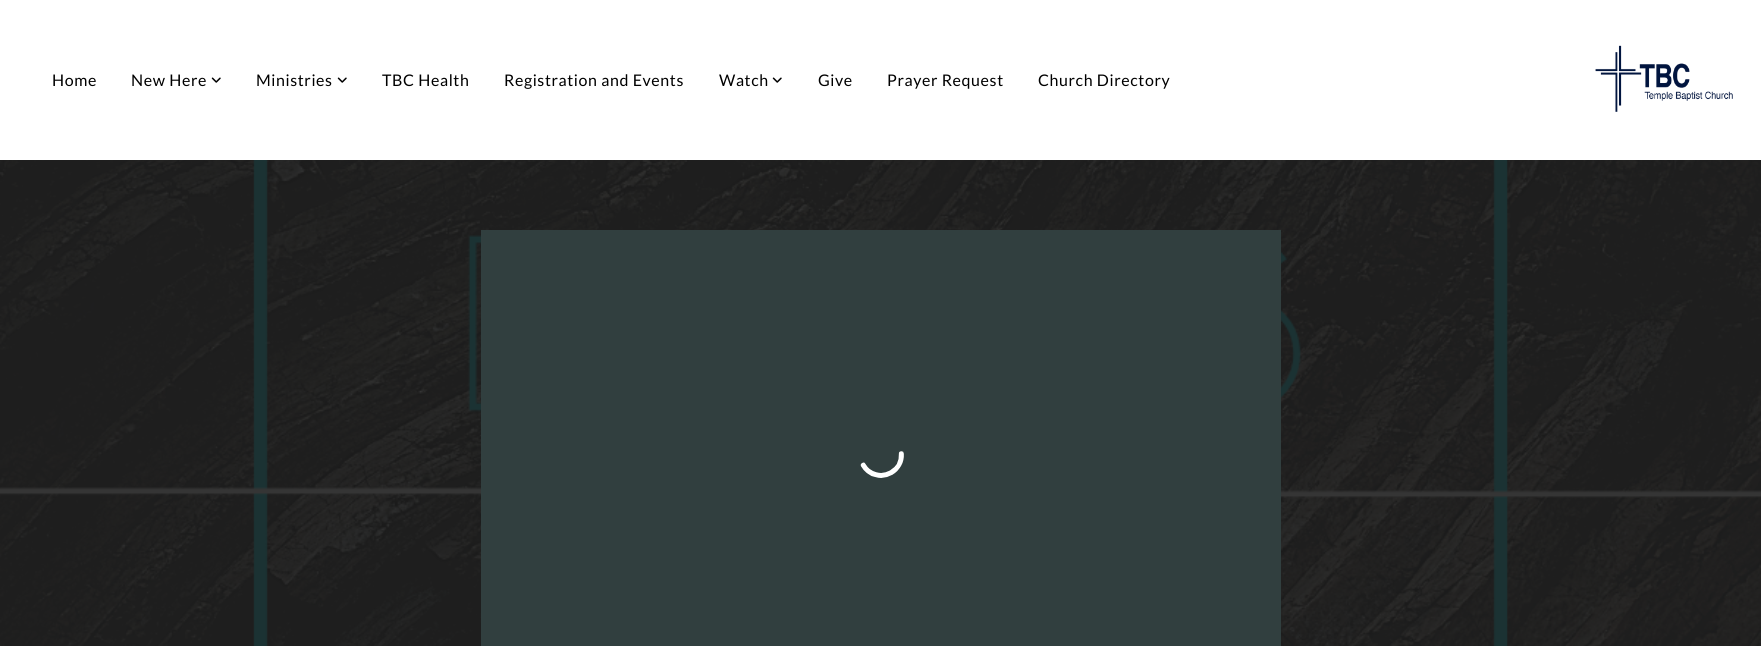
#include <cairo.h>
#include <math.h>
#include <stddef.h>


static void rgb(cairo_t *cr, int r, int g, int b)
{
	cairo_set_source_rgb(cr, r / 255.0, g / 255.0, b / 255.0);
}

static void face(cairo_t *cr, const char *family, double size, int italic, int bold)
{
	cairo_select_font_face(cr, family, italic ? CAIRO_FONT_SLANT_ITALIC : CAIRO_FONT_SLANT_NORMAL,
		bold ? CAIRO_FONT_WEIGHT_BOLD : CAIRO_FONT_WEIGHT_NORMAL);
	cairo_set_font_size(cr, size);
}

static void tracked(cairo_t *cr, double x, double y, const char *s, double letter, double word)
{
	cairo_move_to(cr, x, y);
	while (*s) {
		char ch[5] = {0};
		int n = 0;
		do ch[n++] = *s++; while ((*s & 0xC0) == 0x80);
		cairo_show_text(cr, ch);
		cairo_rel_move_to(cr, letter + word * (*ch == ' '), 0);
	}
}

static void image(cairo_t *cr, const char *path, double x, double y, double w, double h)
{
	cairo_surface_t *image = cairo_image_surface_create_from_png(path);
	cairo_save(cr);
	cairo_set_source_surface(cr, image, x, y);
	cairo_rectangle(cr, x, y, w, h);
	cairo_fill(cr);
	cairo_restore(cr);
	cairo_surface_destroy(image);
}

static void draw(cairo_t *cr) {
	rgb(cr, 255, 255, 255);
	cairo_paint(cr);
	face(cr, "Lato", 16, 0, 0);
	rgb(cr, 0, 0, 0);
	tracked(cr, 52, 86, "Home", 0.6, 0);
	tracked(cr, 131, 86, "New Here", 0.6, 0);
	image(cr, "image0.png", 211, 77, 10, 6);
	tracked(cr, 256, 86, "Ministries", 0.6, 0);
	image(cr, "image0.png", 337, 77, 10, 6);
	tracked(cr, 382, 86, "TBC Health", 0.6, 0);
	tracked(cr, 504, 86, "Registration and Events", 0.6, 0);
	tracked(cr, 719, 86, "Watch", 0.6, 0);
	image(cr, "image0.png", 772, 77, 10, 6);
	tracked(cr, 818, 86, "Give", 0.6, 0);
	tracked(cr, 887, 86, "Prayer Request", 0.6, 0);
	tracked(cr, 1038, 86, "Church Directory", 0.6, 0);
	image(cr, "image1.png", 1595, 45, 138, 67);
	image(cr, "image2.png", 0, 160, 1761, 486);
	image(cr, "image3.png", 481, 230, 800, 416);
}

int main(void) {
	cairo_surface_t *surface = cairo_image_surface_create(CAIRO_FORMAT_RGB24, 1761, 646);
	cairo_t *cr = cairo_create(surface);
	cairo_font_options_t *options = cairo_font_options_create();
	cairo_font_options_set_hint_metrics(options, CAIRO_HINT_METRICS_OFF);
	cairo_font_options_set_hint_style(options, CAIRO_HINT_STYLE_NONE);
	cairo_set_font_options(cr, options);
	cairo_set_miter_limit(cr, 4);
	draw(cr);
	cairo_surface_write_to_png(surface, "render.png");
	cairo_font_options_destroy(options);
	cairo_destroy(cr);
	cairo_surface_destroy(surface);
	return 0;
}
